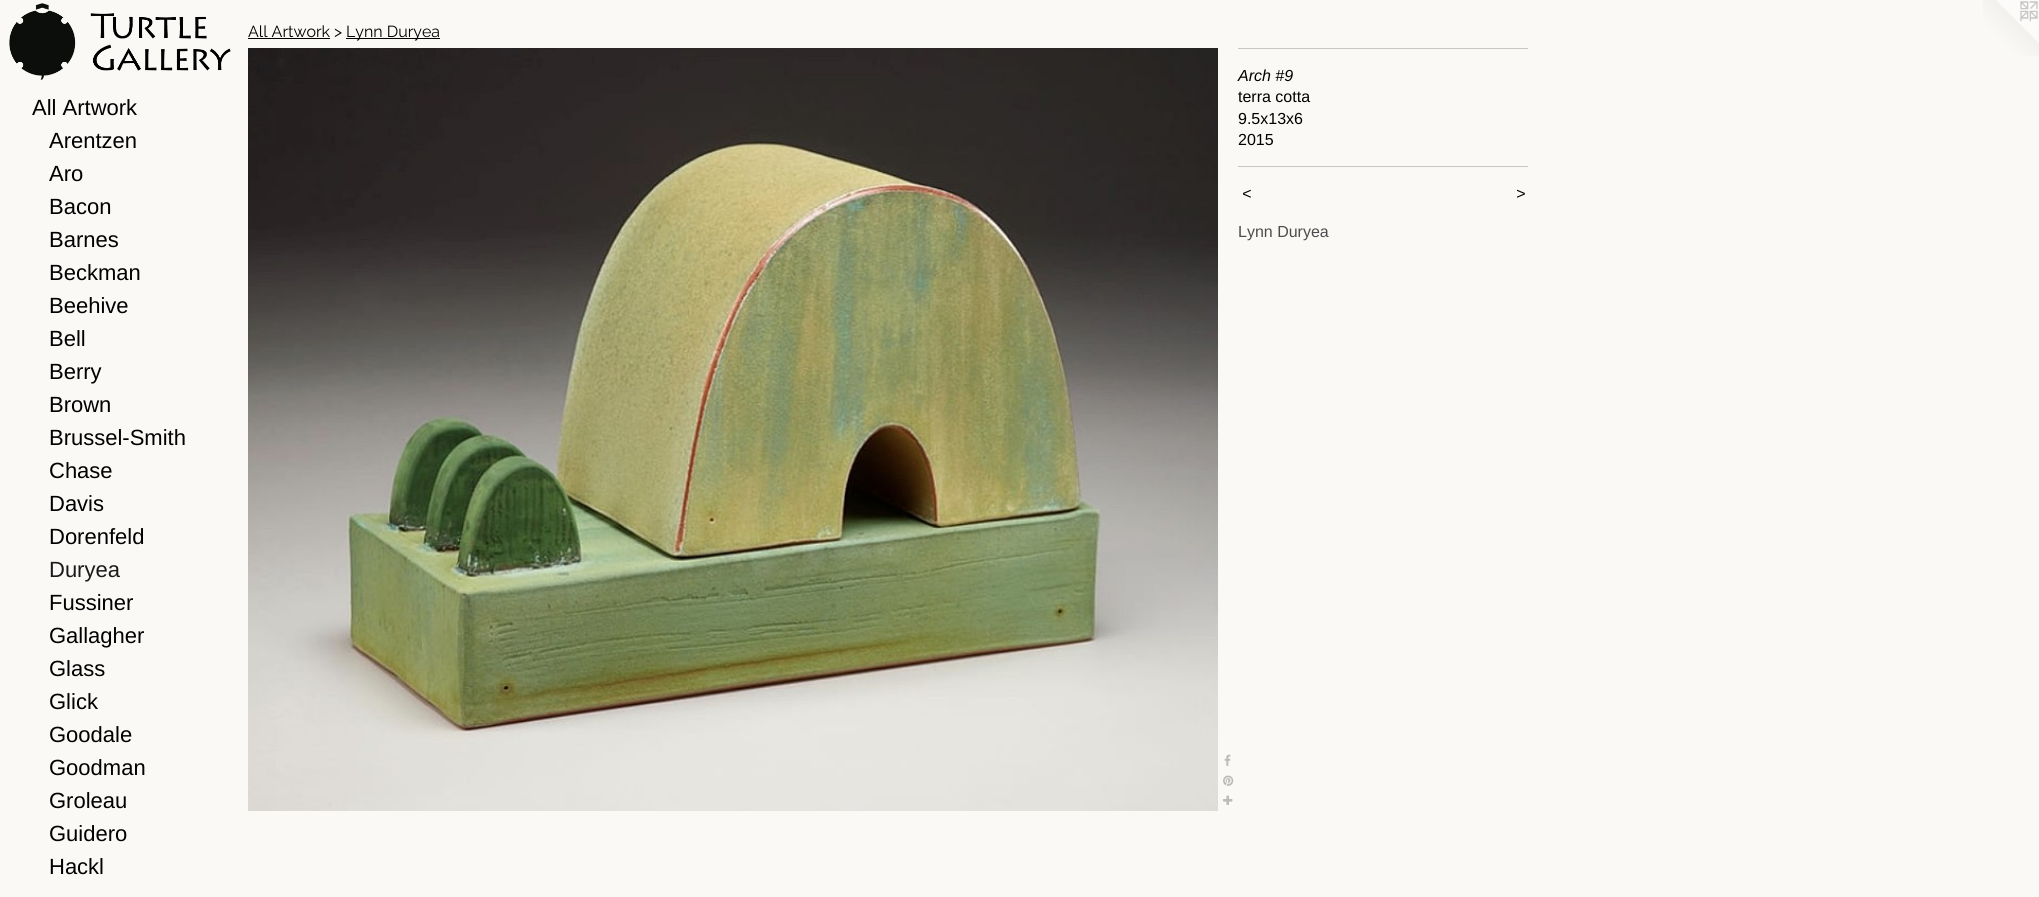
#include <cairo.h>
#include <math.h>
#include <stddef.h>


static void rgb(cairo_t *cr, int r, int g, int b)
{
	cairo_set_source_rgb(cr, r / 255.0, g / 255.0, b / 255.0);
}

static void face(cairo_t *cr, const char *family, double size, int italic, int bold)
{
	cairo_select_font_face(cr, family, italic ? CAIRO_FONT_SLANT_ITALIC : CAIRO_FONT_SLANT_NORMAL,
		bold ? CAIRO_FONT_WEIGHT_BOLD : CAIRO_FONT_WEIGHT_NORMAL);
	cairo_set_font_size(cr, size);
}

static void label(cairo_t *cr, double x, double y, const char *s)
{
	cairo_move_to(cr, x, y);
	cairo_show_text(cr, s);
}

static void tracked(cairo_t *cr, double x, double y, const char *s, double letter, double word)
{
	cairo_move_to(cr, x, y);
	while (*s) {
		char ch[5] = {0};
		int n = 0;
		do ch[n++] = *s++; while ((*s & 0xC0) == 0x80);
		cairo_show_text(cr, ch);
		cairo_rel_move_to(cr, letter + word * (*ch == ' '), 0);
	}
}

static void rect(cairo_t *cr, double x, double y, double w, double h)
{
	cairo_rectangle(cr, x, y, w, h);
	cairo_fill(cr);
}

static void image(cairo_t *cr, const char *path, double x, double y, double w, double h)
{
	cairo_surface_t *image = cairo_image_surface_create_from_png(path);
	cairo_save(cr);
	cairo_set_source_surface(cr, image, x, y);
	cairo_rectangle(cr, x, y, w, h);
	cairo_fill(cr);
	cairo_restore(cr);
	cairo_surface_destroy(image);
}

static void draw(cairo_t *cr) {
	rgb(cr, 250, 249, 246);
	cairo_paint(cr);
	image(cr, "image0.png", 9, 3, 222, 77);
	face(cr, "Liberation Sans", 22, 0, 0);
	rgb(cr, 0, 0, 0);
	label(cr, 32, 115, "All Artwork");
	label(cr, 49, 148, "Arentzen");
	label(cr, 49, 181, "Aro");
	label(cr, 49, 214, "Bacon");
	label(cr, 49, 247, "Barnes");
	label(cr, 49, 280, "Beckman");
	label(cr, 49, 313, "Beehive");
	label(cr, 49, 346, "Bell");
	label(cr, 49, 379, "Berry");
	label(cr, 49, 412, "Brown");
	label(cr, 49, 445, "Brussel-Smith");
	label(cr, 49, 478, "Chase");
	label(cr, 49, 511, "Davis");
	label(cr, 49, 544, "Dorenfeld");
	rgb(cr, 26, 26, 26);
	label(cr, 49, 577, "Duryea");
	rgb(cr, 0, 0, 0);
	label(cr, 49, 610, "Fussiner");
	label(cr, 49, 643, "Gallagher");
	label(cr, 49, 676, "Glass");
	label(cr, 49, 709, "Glick");
	label(cr, 49, 742, "Goodale");
	label(cr, 49, 775, "Goodman");
	label(cr, 49, 808, "Groleau");
	label(cr, 49, 841, "Guidero");
	label(cr, 49, 874, "Hackl");
	face(cr, "Raleway Thin", 16, 0, 0);
	label(cr, 248, 37, "All Artwork >");
	rect(cr, 248, 38, 82, 1);
	rect(cr, 346, 38, 94, 1);
	label(cr, 346, 37, "Lynn Duryea");
	image(cr, "image1.png", 248, 48, 970, 763);
	image(cr, "image2.png", 1224, 754, 7, 12);
	image(cr, "image3.png", 1223, 775, 11, 11);
	image(cr, "image4.png", 1223, 795, 10, 10);
	rgb(cr, 200, 199, 197);
	rect(cr, 1238, 48, 290, 1);
	face(cr, "Liberation Sans", 16, 1, 0);
	rgb(cr, 0, 0, 0);
	label(cr, 1238, 81, "Arch #9");
	face(cr, "Liberation Sans", 16, 0, 0);
	label(cr, 1238, 102, "terra cotta");
	label(cr, 1238, 124, "9.5x13x6");
	label(cr, 1238, 145, "2015");
	rgb(cr, 200, 199, 197);
	rect(cr, 1238, 166, 290, 1);
	face(cr, "Liberation Sans", 16, 1, 0);
	rgb(cr, 0, 0, 0);
	tracked(cr, 1242, 199, "<", 1, 0);
	tracked(cr, 1516, 199, ">", 1, 0);
	face(cr, "Liberation Sans", 16, 0, 0);
	rgb(cr, 77, 76, 76);
	label(cr, 1238, 237, "Lynn Duryea");
	image(cr, "image5.png", 1983, 0, 56, 56);
}

int main(void) {
	cairo_surface_t *surface = cairo_image_surface_create(CAIRO_FORMAT_RGB24, 2039, 897);
	cairo_t *cr = cairo_create(surface);
	cairo_font_options_t *options = cairo_font_options_create();
	cairo_font_options_set_hint_metrics(options, CAIRO_HINT_METRICS_OFF);
	cairo_font_options_set_hint_style(options, CAIRO_HINT_STYLE_NONE);
	cairo_set_font_options(cr, options);
	cairo_set_miter_limit(cr, 4);
	draw(cr);
	cairo_surface_write_to_png(surface, "render.png");
	cairo_font_options_destroy(options);
	cairo_destroy(cr);
	cairo_surface_destroy(surface);
	return 0;
}
